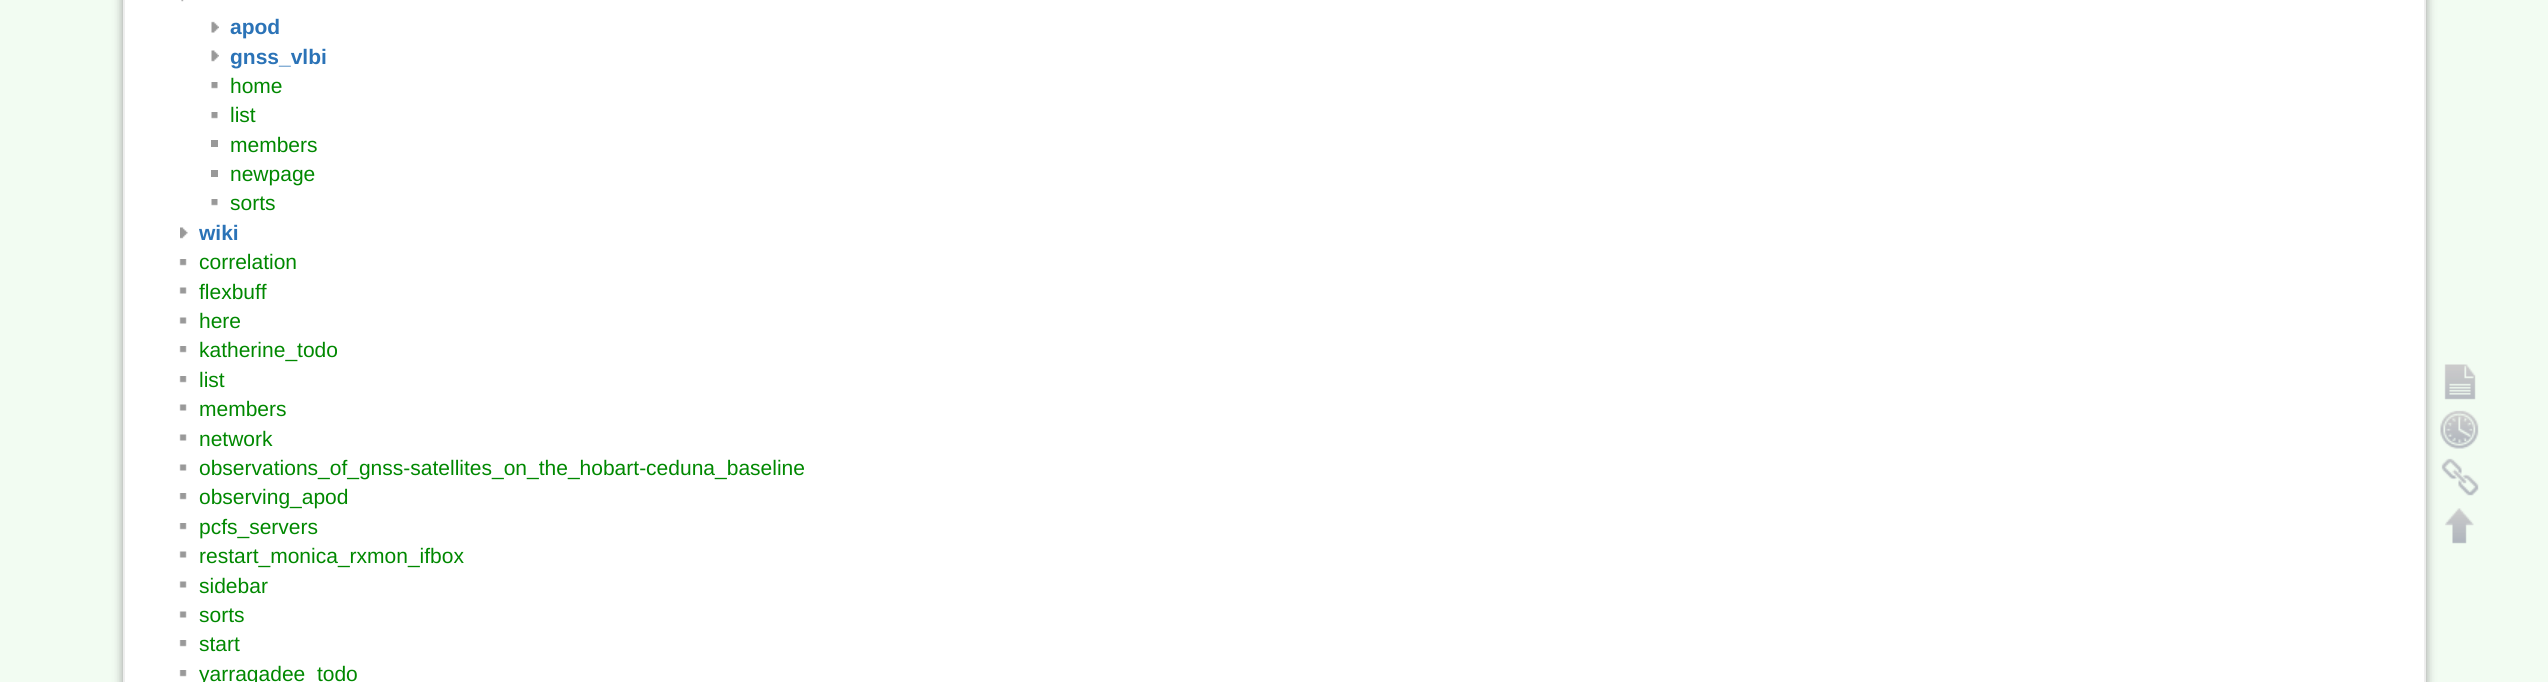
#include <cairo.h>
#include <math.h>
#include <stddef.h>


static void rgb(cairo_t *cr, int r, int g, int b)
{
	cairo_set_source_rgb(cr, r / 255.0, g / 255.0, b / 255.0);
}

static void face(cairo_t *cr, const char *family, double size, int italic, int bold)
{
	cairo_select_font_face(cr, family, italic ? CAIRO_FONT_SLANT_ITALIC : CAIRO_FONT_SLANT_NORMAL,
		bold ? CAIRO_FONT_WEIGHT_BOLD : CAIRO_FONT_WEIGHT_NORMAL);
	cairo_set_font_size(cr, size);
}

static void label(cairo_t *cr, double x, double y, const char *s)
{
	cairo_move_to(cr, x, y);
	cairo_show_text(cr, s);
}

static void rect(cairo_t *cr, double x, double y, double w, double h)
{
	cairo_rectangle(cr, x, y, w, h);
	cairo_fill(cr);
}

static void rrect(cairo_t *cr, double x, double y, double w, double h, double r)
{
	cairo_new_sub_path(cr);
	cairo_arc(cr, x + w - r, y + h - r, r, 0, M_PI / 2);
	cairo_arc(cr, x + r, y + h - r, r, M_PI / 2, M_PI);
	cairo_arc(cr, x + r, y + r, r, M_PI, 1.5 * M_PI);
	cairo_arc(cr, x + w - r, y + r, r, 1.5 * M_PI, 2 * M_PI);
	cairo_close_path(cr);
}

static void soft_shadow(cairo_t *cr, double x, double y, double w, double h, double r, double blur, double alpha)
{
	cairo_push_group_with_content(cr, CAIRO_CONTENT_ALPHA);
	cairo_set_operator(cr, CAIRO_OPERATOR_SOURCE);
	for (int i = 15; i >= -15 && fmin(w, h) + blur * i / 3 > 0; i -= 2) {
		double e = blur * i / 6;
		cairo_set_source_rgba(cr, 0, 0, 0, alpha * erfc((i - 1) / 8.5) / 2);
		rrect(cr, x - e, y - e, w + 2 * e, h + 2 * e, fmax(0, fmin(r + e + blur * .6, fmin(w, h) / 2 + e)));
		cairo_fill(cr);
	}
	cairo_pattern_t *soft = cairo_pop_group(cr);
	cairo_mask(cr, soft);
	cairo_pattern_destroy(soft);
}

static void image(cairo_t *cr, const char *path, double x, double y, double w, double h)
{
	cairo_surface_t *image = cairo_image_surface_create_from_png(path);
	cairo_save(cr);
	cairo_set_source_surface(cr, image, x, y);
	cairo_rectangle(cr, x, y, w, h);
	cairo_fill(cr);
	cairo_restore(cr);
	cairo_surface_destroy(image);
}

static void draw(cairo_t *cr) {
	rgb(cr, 242, 252, 242);
	cairo_paint(cr);
	rgb(cr, 153, 153, 153);
	soft_shadow(cr, 123, -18, 2303, 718, 3, 5, 1);
	rgb(cr, 255, 255, 255);
	cairo_rectangle(cr, 124, -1, 2301, 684);
	cairo_fill_preserve(cr);
	rgb(cr, 238, 238, 238);
	cairo_stroke(cr);
	image(cr, "image0.png", 181, 0, 3, 2);
	image(cr, "image1.png", 211, 21, 8, 12);
	face(cr, "Liberation Sans", 21, 0, 1);
	rgb(cr, 43, 115, 183);
	label(cr, 230, 34, "apod");
	image(cr, "image2.png", 211, 50, 8, 12);
	label(cr, 230, 64, "gnss_vlbi");
	image(cr, "image3.png", 211, 82, 7, 7);
	face(cr, "Liberation Sans", 21, 0, 0);
	rgb(cr, 0, 136, 0);
	label(cr, 230, 93, "home");
	image(cr, "image3.png", 211, 112, 7, 7);
	label(cr, 230, 122, "list");
	rgb(cr, 153, 153, 153);
	rect(cr, 211, 140, 7, 7);
	rgb(cr, 0, 136, 0);
	label(cr, 230, 152, "members");
	rgb(cr, 153, 153, 153);
	rect(cr, 211, 170, 7, 7);
	rgb(cr, 0, 136, 0);
	label(cr, 230, 181, "newpage");
	image(cr, "image3.png", 211, 199, 7, 7);
	label(cr, 230, 210, "sorts");
	image(cr, "image4.png", 180, 227, 8, 12);
	face(cr, "Liberation Sans", 21, 0, 1);
	rgb(cr, 43, 115, 183);
	label(cr, 199, 240, "wiki");
	image(cr, "image5.png", 179, 259, 8, 7);
	face(cr, "Liberation Sans", 21, 0, 0);
	rgb(cr, 0, 136, 0);
	label(cr, 199, 269, "correlation");
	image(cr, "image6.png", 179, 287, 8, 7);
	label(cr, 199, 299, "flexbuff");
	image(cr, "image6.png", 179, 317, 8, 7);
	label(cr, 199, 328, "here");
	image(cr, "image5.png", 179, 346, 8, 7);
	label(cr, 199, 357, "katherine_todo");
	image(cr, "image5.png", 179, 376, 8, 7);
	label(cr, 199, 387, "list");
	image(cr, "image6.png", 179, 404, 8, 7);
	label(cr, 199, 416, "members");
	image(cr, "image6.png", 179, 434, 8, 7);
	label(cr, 199, 446, "network");
	image(cr, "image6.png", 179, 464, 8, 7);
	label(cr, 199, 475, "observations_of_gnss-satellites_on_the_hobart-ceduna_baseline");
	image(cr, "image5.png", 179, 493, 8, 7);
	label(cr, 199, 504, "observing_apod");
	image(cr, "image5.png", 179, 523, 8, 7);
	label(cr, 199, 534, "pcfs_servers");
	image(cr, "image6.png", 179, 551, 8, 7);
	label(cr, 199, 563, "restart_monica_rxmon_ifbox");
	image(cr, "image6.png", 179, 581, 8, 7);
	label(cr, 199, 593, "sidebar");
	image(cr, "image6.png", 179, 611, 8, 7);
	label(cr, 199, 622, "sorts");
	image(cr, "image5.png", 179, 640, 8, 7);
	label(cr, 199, 651, "start");
	image(cr, "image5.png", 179, 670, 8, 7);
	label(cr, 199, 681, "yarragadee_todo");
	image(cr, "image7.png", 2444, 364, 32, 36);
	image(cr, "image8.png", 2440, 410, 39, 39);
	image(cr, "image9.png", 2441, 458, 38, 38);
	image(cr, "image10.png", 2445, 508, 29, 36);
}

int main(void) {
	cairo_surface_t *surface = cairo_image_surface_create(CAIRO_FORMAT_RGB24, 2548, 682);
	cairo_t *cr = cairo_create(surface);
	cairo_font_options_t *options = cairo_font_options_create();
	cairo_font_options_set_hint_metrics(options, CAIRO_HINT_METRICS_OFF);
	cairo_font_options_set_hint_style(options, CAIRO_HINT_STYLE_NONE);
	cairo_set_font_options(cr, options);
	cairo_set_miter_limit(cr, 4);
	draw(cr);
	cairo_surface_write_to_png(surface, "render.png");
	cairo_font_options_destroy(options);
	cairo_destroy(cr);
	cairo_surface_destroy(surface);
	return 0;
}
